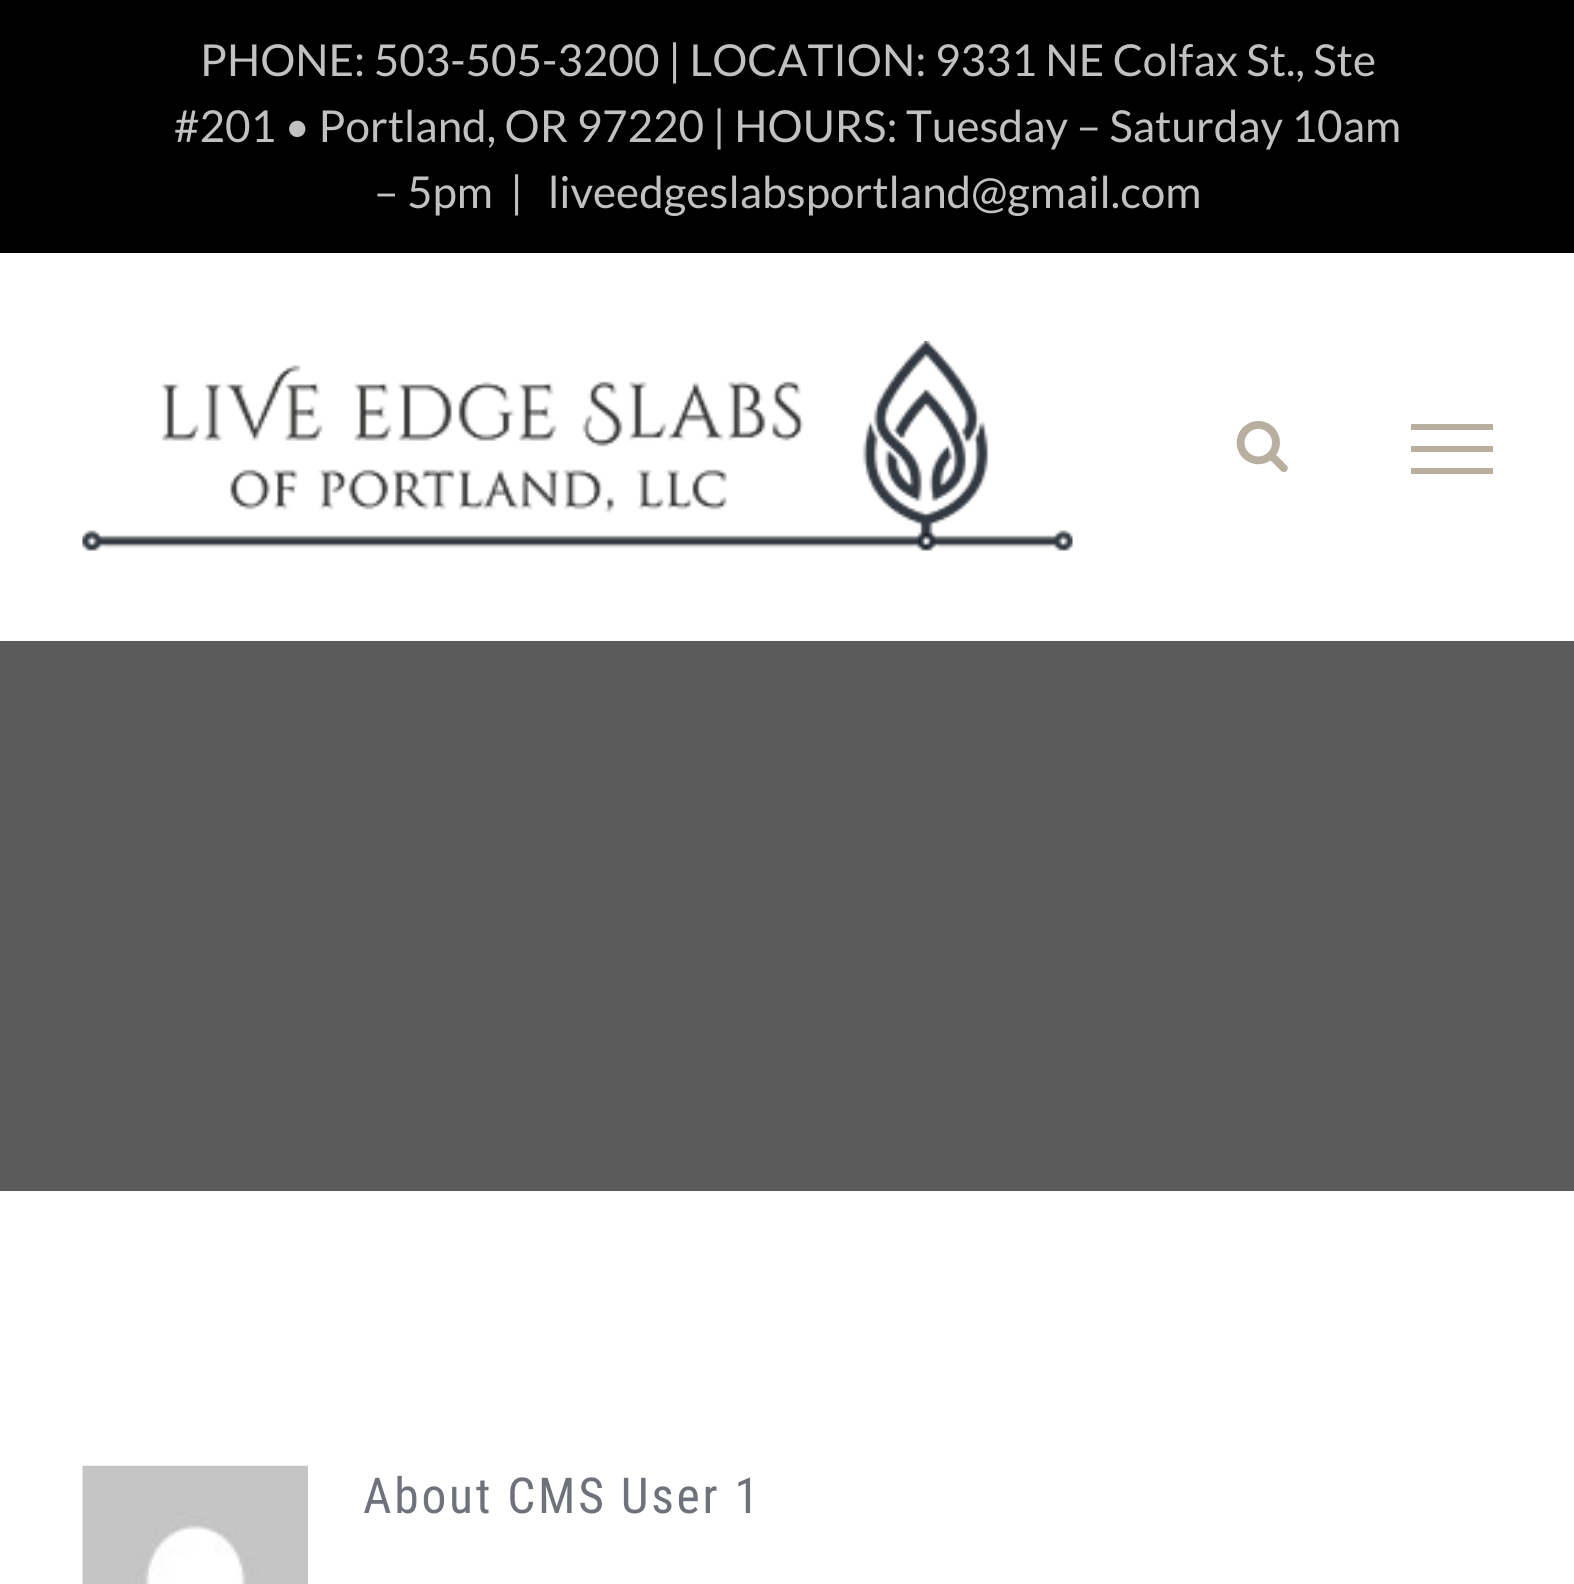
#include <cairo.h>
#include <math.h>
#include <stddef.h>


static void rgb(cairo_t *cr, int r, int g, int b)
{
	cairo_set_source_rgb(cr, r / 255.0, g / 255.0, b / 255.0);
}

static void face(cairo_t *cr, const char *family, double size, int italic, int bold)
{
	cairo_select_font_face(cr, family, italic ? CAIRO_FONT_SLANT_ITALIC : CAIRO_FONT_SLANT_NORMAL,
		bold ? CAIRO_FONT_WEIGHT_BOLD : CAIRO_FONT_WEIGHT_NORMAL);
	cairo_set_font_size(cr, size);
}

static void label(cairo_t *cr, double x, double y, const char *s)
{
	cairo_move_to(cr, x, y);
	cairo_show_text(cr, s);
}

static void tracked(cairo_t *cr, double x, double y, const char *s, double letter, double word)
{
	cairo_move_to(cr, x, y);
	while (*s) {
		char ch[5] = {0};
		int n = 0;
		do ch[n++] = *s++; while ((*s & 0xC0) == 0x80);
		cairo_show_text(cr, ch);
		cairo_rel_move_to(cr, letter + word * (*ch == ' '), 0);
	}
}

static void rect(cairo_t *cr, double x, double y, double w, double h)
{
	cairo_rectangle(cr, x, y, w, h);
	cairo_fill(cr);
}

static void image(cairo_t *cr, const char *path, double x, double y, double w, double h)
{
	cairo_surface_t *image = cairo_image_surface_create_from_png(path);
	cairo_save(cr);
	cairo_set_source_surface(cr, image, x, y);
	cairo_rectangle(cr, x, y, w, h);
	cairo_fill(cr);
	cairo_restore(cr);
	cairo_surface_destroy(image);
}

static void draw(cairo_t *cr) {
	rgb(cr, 255, 255, 255);
	cairo_paint(cr);
	rgb(cr, 0, 0, 0);
	rect(cr, 0, 0, 1574, 253);
	face(cr, "Lato", 44, 0, 0);
	rgb(cr, 193, 193, 193);
	label(cr, 200, 76, "PHONE: 503-505-3200 | LOCATION: 9331 NE Colfax St., Ste");
	label(cr, 174, 142, "#201 • Portland, OR 97220 | HOURS: Tuesday – Saturday 10am");
	label(cr, 374, 208, "– 5pm");
	label(cr, 510, 208, "|");
	label(cr, 548, 208, "liveedgeslabsportland@gmail.com");
	image(cr, "image0.png", 82, 341, 991, 210);
	image(cr, "image1.png", 1236, 421, 52, 52);
	rgb(cr, 185, 175, 161);
	rect(cr, 1411, 424, 82, 6);
	rect(cr, 1411, 446, 82, 6);
	rect(cr, 1411, 468, 82, 6);
	rgb(cr, 92, 91, 92);
	rect(cr, 0, 641, 1574, 550);
	image(cr, "image2.png", 82, 1465, 226, 119);
	face(cr, "Roboto Condensed", 49.5, 0, 0);
	rgb(cr, 111, 114, 123);
	tracked(cr, 363, 1513, "About CMS User 1", 2.75, 0);
}

int main(void) {
	cairo_surface_t *surface = cairo_image_surface_create(CAIRO_FORMAT_RGB24, 1574, 1584);
	cairo_t *cr = cairo_create(surface);
	cairo_font_options_t *options = cairo_font_options_create();
	cairo_font_options_set_hint_metrics(options, CAIRO_HINT_METRICS_OFF);
	cairo_font_options_set_hint_style(options, CAIRO_HINT_STYLE_NONE);
	cairo_set_font_options(cr, options);
	cairo_set_miter_limit(cr, 4);
	draw(cr);
	cairo_surface_write_to_png(surface, "render.png");
	cairo_font_options_destroy(options);
	cairo_destroy(cr);
	cairo_surface_destroy(surface);
	return 0;
}
